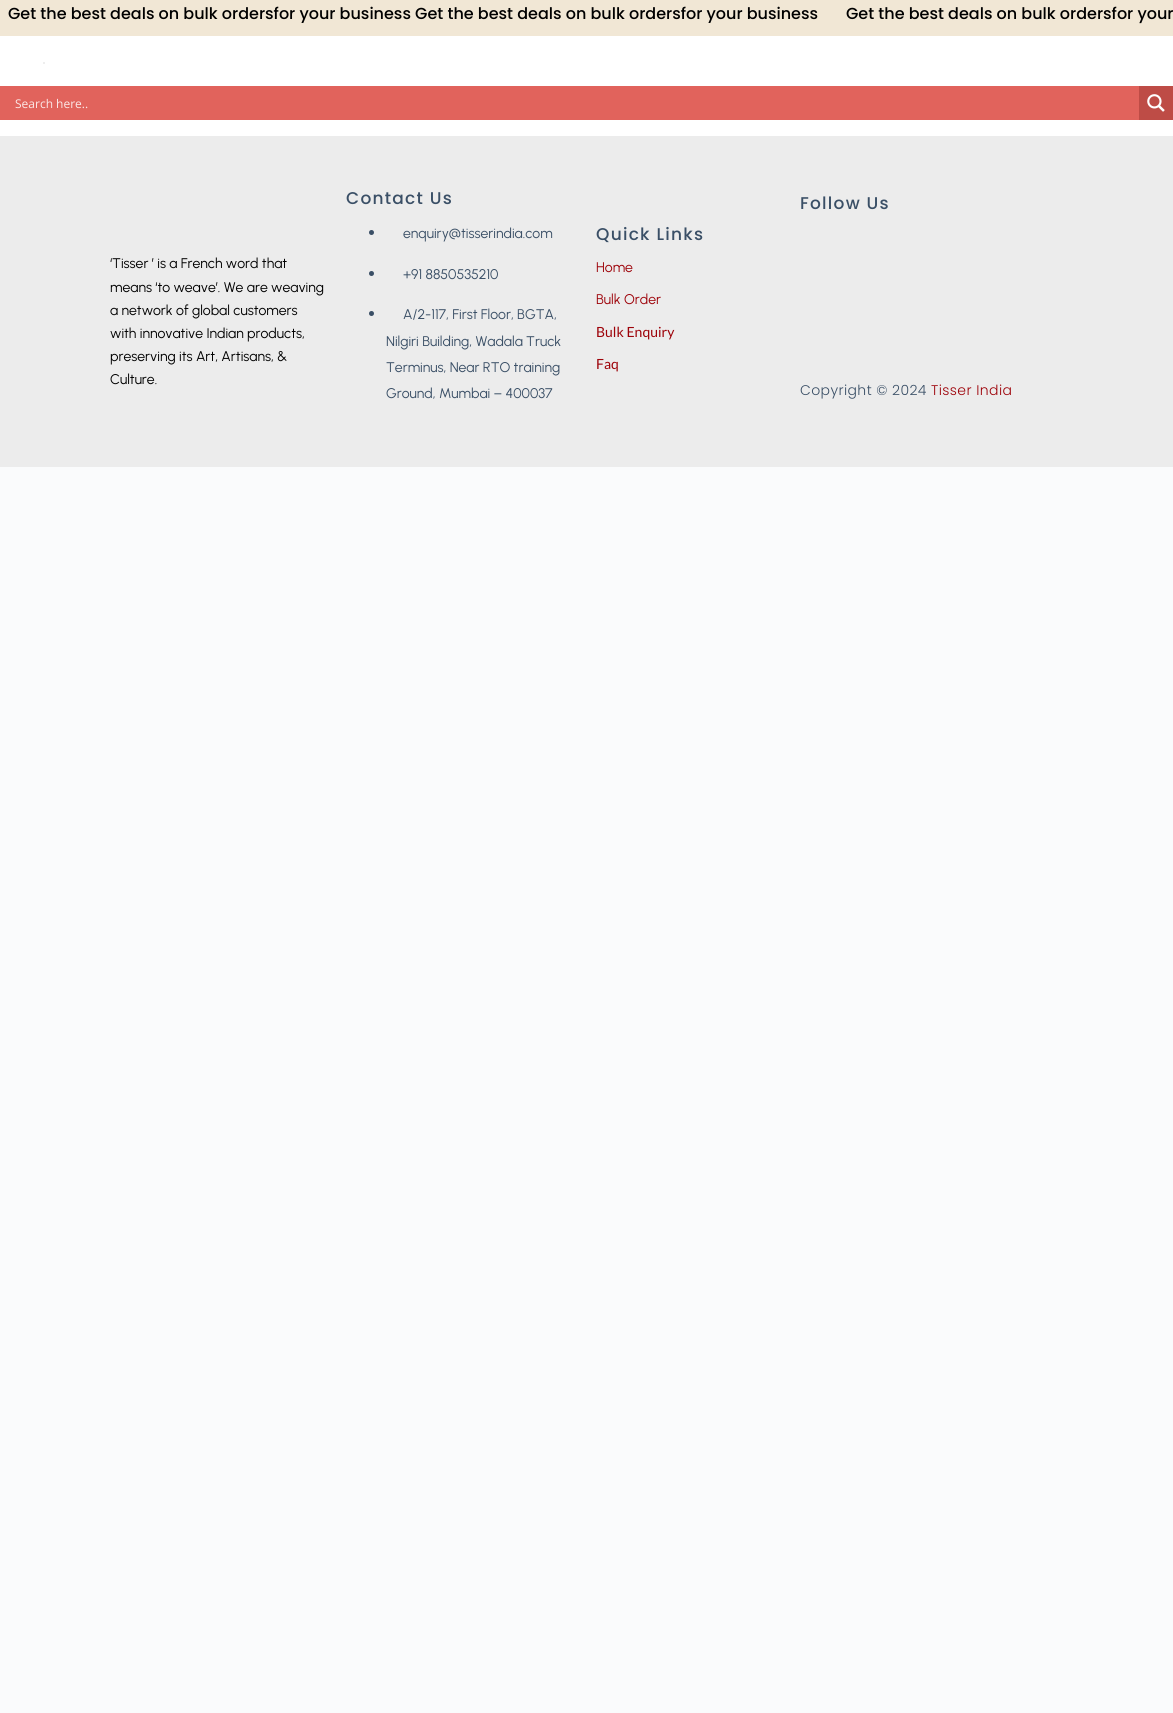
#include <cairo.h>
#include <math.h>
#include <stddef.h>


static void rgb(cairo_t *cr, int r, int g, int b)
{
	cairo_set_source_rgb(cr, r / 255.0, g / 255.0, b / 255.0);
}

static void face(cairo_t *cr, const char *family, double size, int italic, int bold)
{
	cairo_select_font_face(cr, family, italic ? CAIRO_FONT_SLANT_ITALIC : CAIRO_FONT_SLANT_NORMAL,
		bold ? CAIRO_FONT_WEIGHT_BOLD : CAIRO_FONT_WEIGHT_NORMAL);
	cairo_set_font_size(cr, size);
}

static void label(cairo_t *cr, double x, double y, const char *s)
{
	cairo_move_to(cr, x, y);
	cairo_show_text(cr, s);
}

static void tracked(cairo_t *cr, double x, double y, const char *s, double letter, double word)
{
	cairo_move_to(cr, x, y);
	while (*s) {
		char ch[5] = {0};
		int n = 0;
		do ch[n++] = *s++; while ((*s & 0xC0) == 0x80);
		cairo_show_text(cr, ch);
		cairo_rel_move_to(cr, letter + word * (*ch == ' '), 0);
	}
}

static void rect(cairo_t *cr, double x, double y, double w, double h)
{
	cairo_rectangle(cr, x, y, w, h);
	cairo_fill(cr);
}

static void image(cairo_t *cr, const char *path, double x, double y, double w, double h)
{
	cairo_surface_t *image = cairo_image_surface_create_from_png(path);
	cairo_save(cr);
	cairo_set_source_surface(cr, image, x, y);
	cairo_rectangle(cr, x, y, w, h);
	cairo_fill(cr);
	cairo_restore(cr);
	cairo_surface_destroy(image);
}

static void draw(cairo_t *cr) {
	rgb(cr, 250, 251, 252);
	cairo_paint(cr);
	rgb(cr, 255, 255, 255);
	rect(cr, 0, 36, 1173, 100);
	rgb(cr, 241, 231, 213);
	rect(cr, 0, 0, 1173, 36);
	cairo_save(cr);
	cairo_rectangle(cr, 0, 5, 1173, 18);
	cairo_clip(cr);
	face(cr, "Poppins Medium", 16, 0, 0);
	rgb(cr, 0, 0, 0);
	label(cr, 8, 19, "Get the best deals on bulk ordersfor your business Get the best deals on bulk ordersfor your business");
	cairo_restore(cr);
	face(cr, "Poppins Medium", 16, 0, 0);
	rgb(cr, 0, 0, 0);
	label(cr, 846, 19, "Get the best deals on bulk ordersfor your");
	rgb(cr, 232, 232, 232);
	cairo_new_path(cr);
	cairo_arc(cr, 44, 63, 1, 0, 2 * M_PI);
	cairo_fill(cr);
	rgb(cr, 225, 99, 92);
	rect(cr, 0, 86, 1139, 34);
	face(cr, "Open Sans", 12, 0, 0);
	rgb(cr, 251, 232, 231);
	label(cr, 15, 108, "Search here..");
	rgb(cr, 190, 76, 70);
	rect(cr, 1139, 86, 34, 34);
	image(cr, "image0.png", 1147, 94, 18, 18);
	rgb(cr, 236, 236, 236);
	rect(cr, 0, 136, 1173, 331);
	face(cr, "Urbanist", 14, 0, 0);
	rgb(cr, 0, 0, 0);
	label(cr, 110, 268, "‘Tisser ’ is a French word that");
	label(cr, 110, 292, "means ‘to weave’. We are weaving");
	label(cr, 110, 315, "a network of global customers");
	label(cr, 110, 338, "with innovative Indian products,");
	label(cr, 110, 361, "preserving its Art, Artisans, &");
	label(cr, 110, 384, "Culture.");
	face(cr, "Poppins Medium", 17, 0, 0);
	rgb(cr, 58, 79, 102);
	tracked(cr, 346, 204, "Contact Us", 1.25, 0);
	cairo_new_path(cr);
	cairo_arc(cr, 371.5, 232.5, 2.5, 0, 2 * M_PI);
	cairo_fill(cr);
	face(cr, "Urbanist", 14, 0, 0);
	label(cr, 403, 238, "enquiry@tisserindia.com");
	cairo_new_path(cr);
	cairo_arc(cr, 371.5, 273.5, 2.5, 0, 2 * M_PI);
	cairo_fill(cr);
	label(cr, 403, 279, "+91 8850535210");
	cairo_new_path(cr);
	cairo_arc(cr, 371.5, 313.5, 2.5, 0, 2 * M_PI);
	cairo_fill(cr);
	label(cr, 403, 319, "A/2-117, First Floor, BGTA,");
	label(cr, 386, 346, "Nilgiri Building, Wadala Truck");
	label(cr, 386, 372, "Terminus, Near RTO training");
	label(cr, 386, 398, "Ground, Mumbai – 400037");
	face(cr, "Poppins Medium", 17, 0, 0);
	tracked(cr, 596, 240, "Quick Links", 1.25, 0);
	face(cr, "Urbanist", 14, 0, 0);
	rgb(cr, 157, 2, 9);
	label(cr, 596, 272, "Home");
	label(cr, 596, 304, "Bulk Order");
	face(cr, "Lato", 14, 0, 0);
	label(cr, 596, 337, "Bulk Enquiry");
	label(cr, 596, 369, "Faq");
	face(cr, "Poppins Medium", 17, 0, 0);
	rgb(cr, 58, 79, 102);
	tracked(cr, 800, 209, "Follow Us", 1.25, 0);
	face(cr, "Poppins Light", 14, 0, 0);
	tracked(cr, 800, 395, "Copyright © 2024", 0.4, 0);
	rgb(cr, 157, 2, 9);
	tracked(cr, 931, 395, "Tisser India", 0.4, 0);
}

int main(void) {
	cairo_surface_t *surface = cairo_image_surface_create(CAIRO_FORMAT_RGB24, 1173, 1713);
	cairo_t *cr = cairo_create(surface);
	cairo_font_options_t *options = cairo_font_options_create();
	cairo_font_options_set_hint_metrics(options, CAIRO_HINT_METRICS_OFF);
	cairo_font_options_set_hint_style(options, CAIRO_HINT_STYLE_NONE);
	cairo_set_font_options(cr, options);
	cairo_set_miter_limit(cr, 4);
	draw(cr);
	cairo_surface_write_to_png(surface, "render.png");
	cairo_font_options_destroy(options);
	cairo_destroy(cr);
	cairo_surface_destroy(surface);
	return 0;
}
